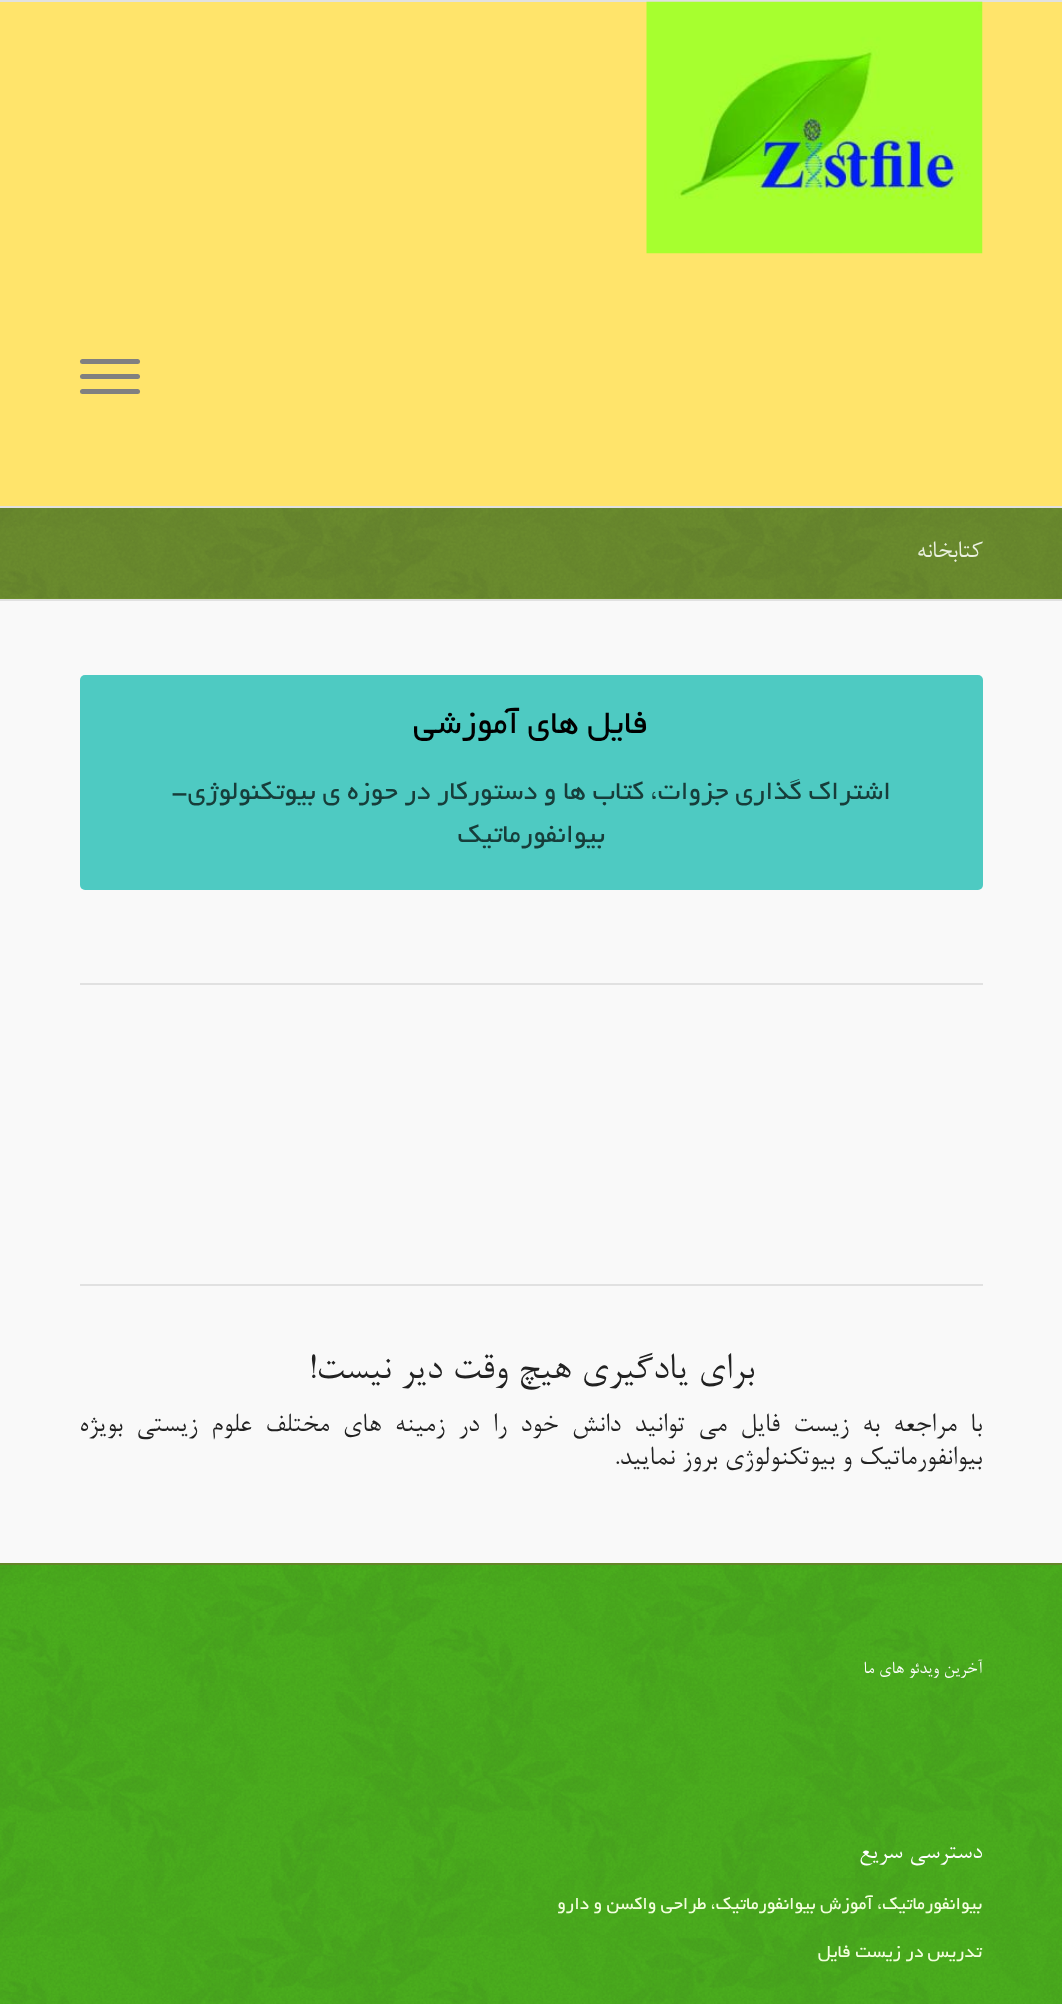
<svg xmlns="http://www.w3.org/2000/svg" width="1062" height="2004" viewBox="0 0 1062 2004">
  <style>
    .t1 { font: 27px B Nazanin; direction: rtl; fill: #ecf2e1; }
    .t2 { font: 36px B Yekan; direction: rtl; fill: #000; }
    .t3 { font: 28.8px B Yekan; direction: rtl; fill: #173d3a; }
    .t4 { font: 42px B Nazanin; direction: rtl; fill: #222; }
    .t5 { font: 30px B Nazanin; direction: rtl; fill: #222; }
    .t6 { font: 19.5px B Nazanin; direction: rtl; fill: #fff; }
    .t7 { font: 27px B Nazanin; direction: rtl; fill: #fff; }
    .t8 { font: 19.5px B Yekan; direction: rtl; fill: #f3ffde; }
  </style>
  <rect width="100%" height="100%" fill="#719430"/>
  <rect x="0" y="0" width="1062" height="2" fill="#e1e1e1"/>
  <rect x="0" y="506" width="1062" height="2" fill="#e1e1e1"/>
  <rect x="0" y="2" width="1062" height="504" fill="#ffe46b"/>
  <image x="646" y="1" width="337" height="253" href="images/1.png"/>
  <rect x="80" y="374" width="60" height="5" rx="2.5" fill="#808080"/>
  <rect x="80" y="359" width="60" height="5" rx="2.5" fill="#808080"/>
  <rect x="80" y="389" width="60" height="5" rx="2.5" fill="#808080"/>
  <image x="0" y="508" width="1062" height="91" href="images/2.png"/>
  <text x="982" y="557" class="t1">کتابخانه</text>
  <rect x="0" y="601" width="1062" height="962" fill="#f9f9f9"/>
  <rect x="0" y="599" width="1062" height="2" fill="#e1e1e1"/>
  <rect x="80" y="675" width="903" height="215" rx="5" fill="#4ecac2"/>
  <text x="648" y="733" class="t2">فایل های آموزشی</text>
  <text x="891" y="799" class="t3">اشتراک گذاری جزوات، کتاب ها و دستورکار در حوزه ی بیوتکنولوژی-</text>
  <text x="605" y="842" class="t3">بیوانفورماتیک</text>
  <rect x="80" y="983" width="903" height="2" fill="#e1e1e1"/>
  <rect x="80" y="1284" width="903" height="2" fill="#e1e1e1"/>
  <text x="754" y="1378" class="t4">برای یادگیری هیچ وقت دیر نیست!</text>
  <text x="982" y="1431" word-spacing="6.25" class="t5">با مراجعه به زیست فایل می توانید دانش خود را در زمینه های مختلف علوم زیستی بویژه</text>
  <text x="982" y="1464" class="t5">بیوانفورماتیک و بیوتکنولوژی بروز نمایید.</text>
  <rect x="0" y="1565" width="1062" height="439" fill="#4fb81f"/>
  <image x="0" y="1565" width="1062" height="439" href="images/3.png"/>
  <rect x="0" y="1563" width="1062" height="2" fill="#658529"/>
  <text x="982" y="1673" class="t6">آخرین ویدئو های</text>
  <text x="874" y="1673" class="t6">ما</text>
  <text x="982" y="1858" class="t7">دسترسی سریع</text>
  <text x="982" y="1909" class="t8">بیوانفورماتیک، آموزش بیوانفورماتیک، طراحی واکسن و دارو</text>
  <text x="982" y="1957" class="t8">تدریس در زیست فایل</text>
</svg>
